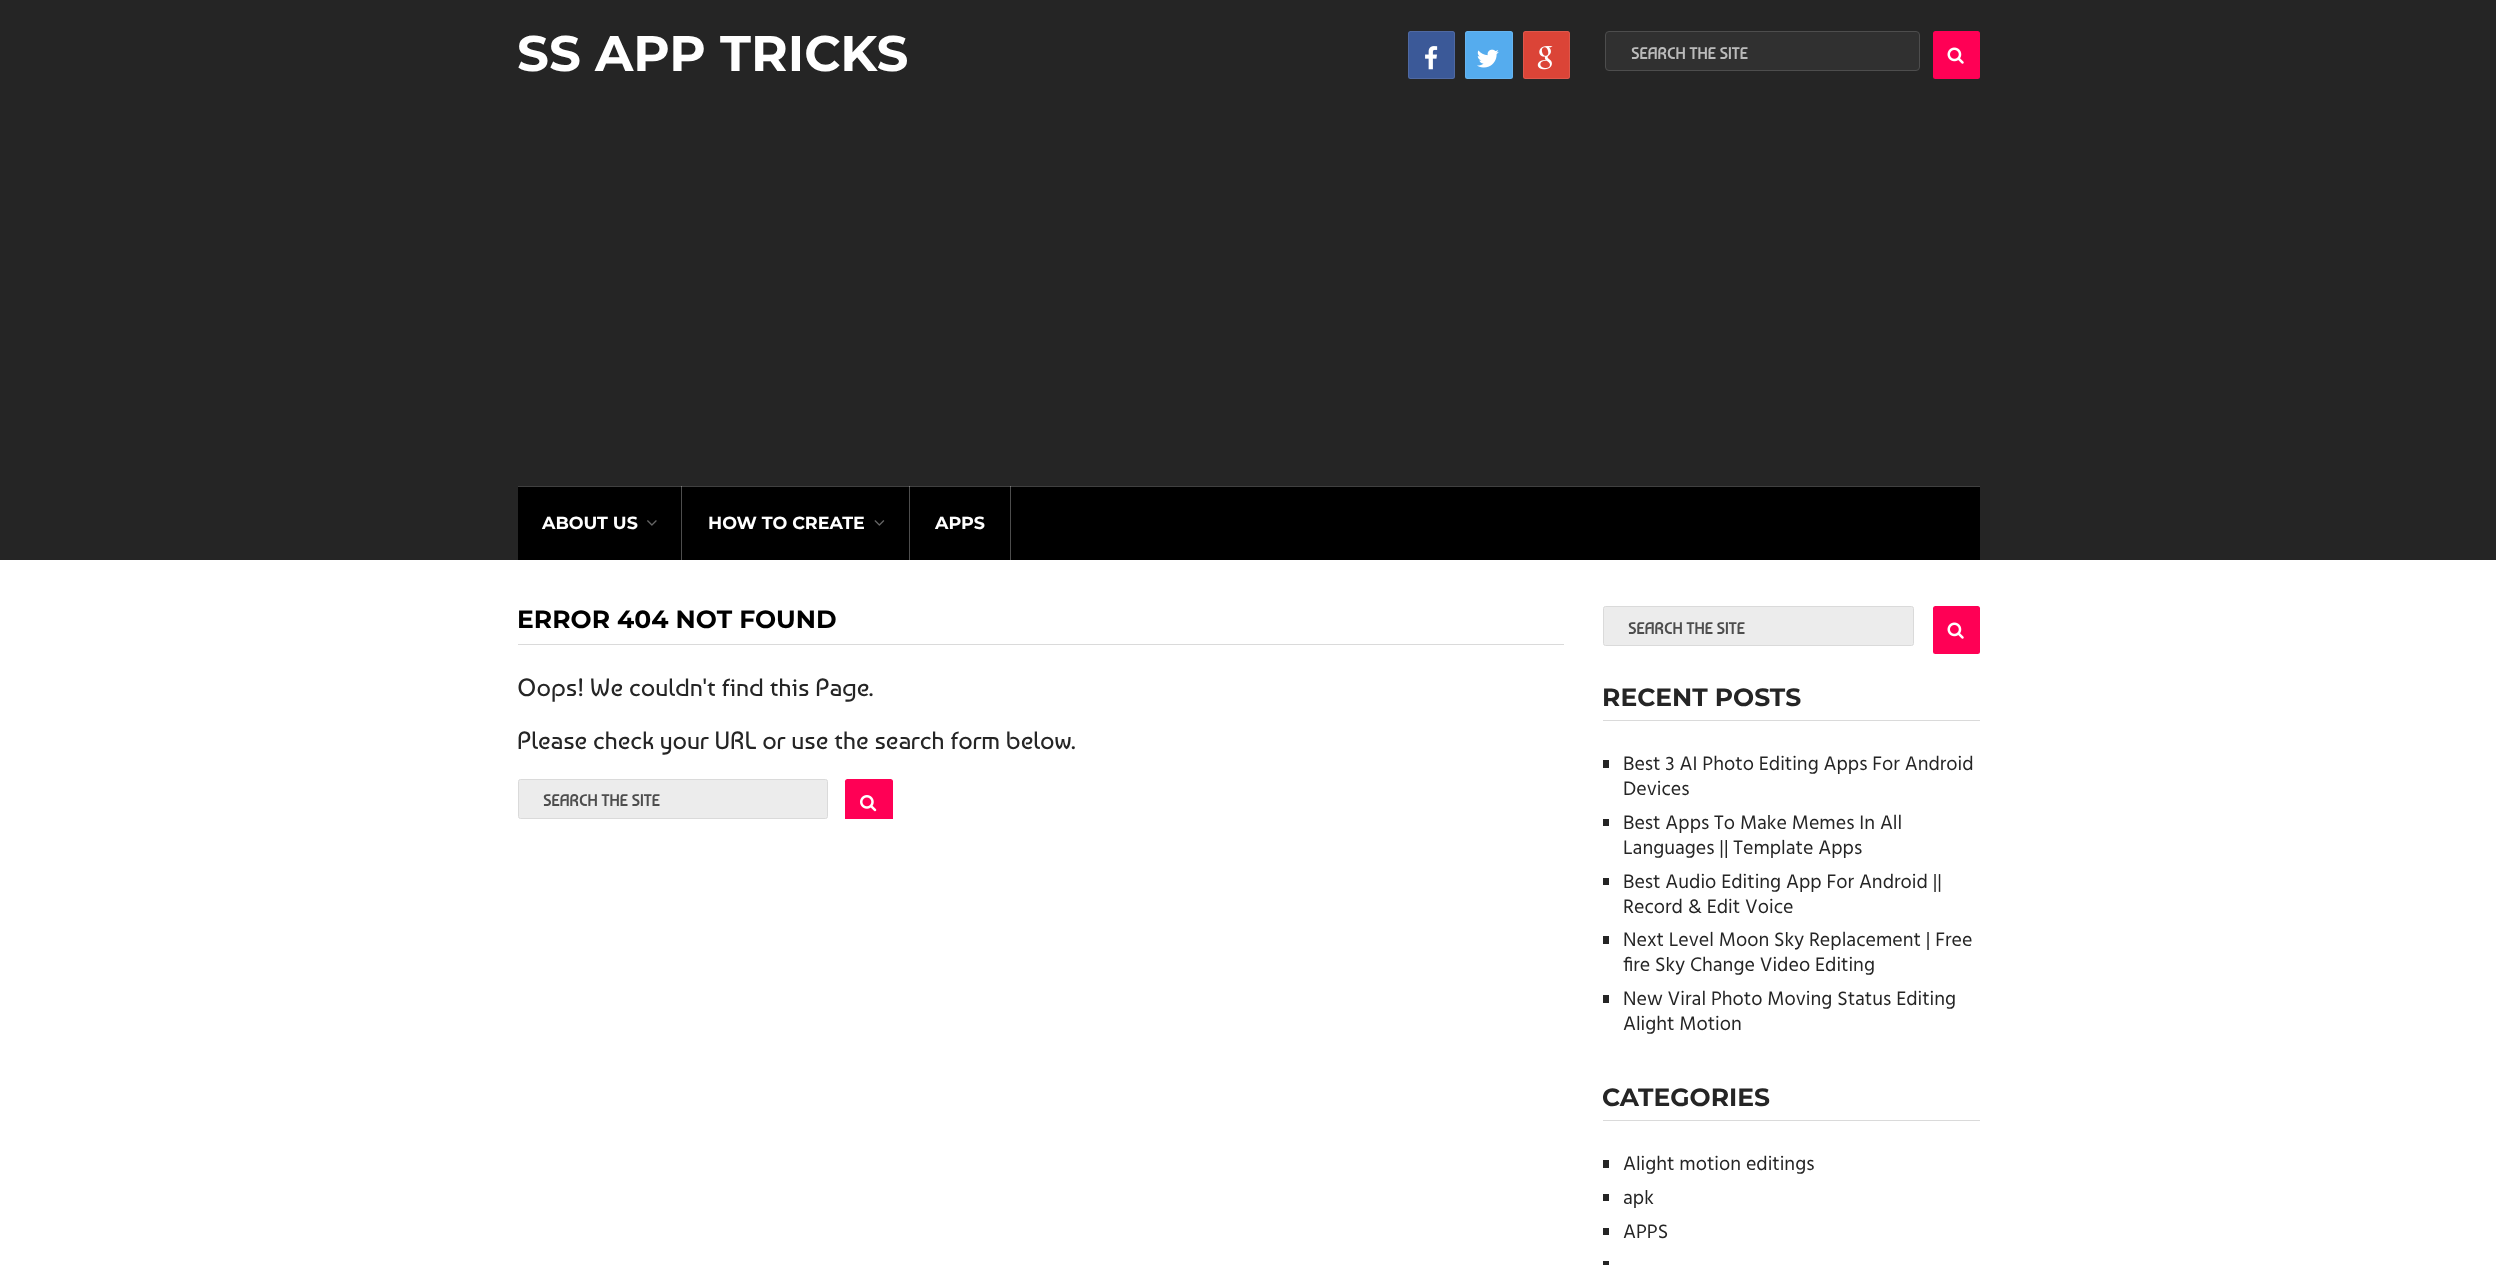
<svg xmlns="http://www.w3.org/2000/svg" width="2496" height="1265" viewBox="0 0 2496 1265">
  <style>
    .t1 { font: bold 50px Montserrat; fill: #fff; }
    .t2 { font: bold 16.25px Baumans; fill: #bbb; }
    .t3 { font: bold 17.5px Montserrat; fill: #fff; }
    .t4 { font: bold 25px Montserrat; fill: #000; }
    .t5 { font: 25px Baumans; fill: #252525; }
    .t6 { font: bold 16.25px Baumans; fill: #4d4d4d; }
    .t7 { font: bold 25px Montserrat; fill: #252525; }
    .t8 { font: 20px Hind; fill: #252525; }
  </style>
  <rect width="100%" height="100%" fill="#fff"/>
  <rect x="0" y="0" width="2496" height="560" fill="#252525"/>
  <text x="517" y="71" class="t1">SS APP TRICKS</text>
  <rect x="1408" y="31" width="47" height="48" rx="2.5" fill="#3b5998"/>
  <rect x="1408.5" y="31.5" width="46" height="47" rx="2" fill="none" stroke="#ffffff1a"/>
  <image x="1425" y="46" width="13" height="24" href="images/1.png"/>
  <rect x="1465" y="31" width="48" height="48" rx="2.5" fill="#55acee"/>
  <rect x="1465.5" y="31.5" width="47" height="47" rx="2" fill="none" stroke="#ffffff1a"/>
  <image x="1477" y="49" width="22" height="19" href="images/2.png"/>
  <rect x="1523" y="31" width="47" height="48" rx="2.5" fill="#db4437"/>
  <rect x="1523.5" y="31.5" width="46" height="47" rx="2" fill="none" stroke="#ffffff1a"/>
  <image x="1537" y="46" width="16" height="24" href="images/3.png"/>
  <rect x="1605.5" y="31.5" width="314" height="39" rx="3.5" fill="#303030" stroke="#4d4d4d"/>
  <text x="1631" y="59" class="t2">SEARCH THE SITE</text>
  <rect x="1933" y="31" width="47" height="48" rx="2.5" fill="#f05"/>
  <image x="1947" y="47" width="17" height="17" href="images/4.png"/>
  <rect x="518" y="487" width="1462" height="73" fill="#000"/>
  <rect x="1010" y="486" width="1" height="74" fill="#4d4d4d"/>
  <rect x="909" y="486" width="1" height="74" fill="#4d4d4d"/>
  <rect x="681" y="486" width="1" height="74" fill="#4d4d4d"/>
  <rect x="518" y="486" width="1462" height="1" fill="#404040"/>
  <rect x="1010" y="486" width="1" height="1" fill="#797979"/>
  <rect x="909" y="486" width="1" height="1" fill="#797979"/>
  <rect x="681" y="486" width="1" height="1" fill="#797979"/>
  <text x="542" y="529" class="t3">ABOUT US</text>
  <image x="647" y="520" width="10" height="6" href="images/5.png"/>
  <text x="708" y="529" class="t3">HOW TO CREATE</text>
  <image x="874" y="520" width="11" height="6" href="images/6.png"/>
  <text x="935" y="529" class="t3">APPS</text>
  <rect x="518" y="644" width="1046" height="1" fill="#dadada"/>
  <text x="517" y="628" class="t4">ERROR 404 NOT FOUND</text>
  <text x="517" y="696" class="t5">Oops! We couldn't find this Page.</text>
  <text x="517" y="749" class="t5">Please check your URL or use the search form below.</text>
  <rect x="518.5" y="779.5" width="309" height="39" rx="2" fill="#ececec" stroke="#dadada"/>
  <text x="543" y="806" class="t6">SEARCH THE SITE</text>
  <path d="M847.5 779H890.5C892 779 893 780 893 781.5V819H845V781.5C845 780 846 779 847.5 779Z" fill="#f05"/>
  <image x="860" y="795" width="17" height="17" href="images/7.png"/>
  <rect x="1603.5" y="606.5" width="310" height="39" rx="2" fill="#ececec" stroke="#dadada"/>
  <text x="1628" y="634" class="t6">SEARCH THE SITE</text>
  <rect x="1933" y="606" width="47" height="48" rx="2.5" fill="#f05"/>
  <image x="1947" y="622" width="17" height="17" href="images/4.png"/>
  <rect x="1603" y="720" width="377" height="1" fill="#dadada"/>
  <text x="1602" y="706" class="t7">RECENT POSTS</text>
  <rect x="1603" y="760" width="6" height="8" fill="#252525"/>
  <text x="1623" y="770" class="t8">Best 3 AI Photo Editing Apps For Android</text>
  <text x="1623" y="795" class="t8">Devices</text>
  <rect x="1603" y="819" width="6" height="7" fill="#252525"/>
  <text x="1623" y="829" class="t8">Best Apps To Make Memes In All</text>
  <text x="1623" y="854" class="t8">Languages || Template Apps</text>
  <rect x="1603" y="878" width="6" height="7" fill="#252525"/>
  <text x="1623" y="888" class="t8">Best Audio Editing App For Android ||</text>
  <text x="1623" y="913" class="t8">Record &amp; Edit Voice</text>
  <rect x="1603" y="936" width="6" height="8" fill="#252525"/>
  <text x="1623" y="946" class="t8">Next Level Moon Sky Replacement | Free</text>
  <text x="1623" y="971" class="t8">fire Sky Change Video Editing</text>
  <rect x="1603" y="995" width="6" height="8" fill="#252525"/>
  <text x="1623" y="1005" class="t8">New Viral Photo Moving Status Editing</text>
  <text x="1623" y="1030" class="t8">Alight Motion</text>
  <rect x="1603" y="1120" width="377" height="1" fill="#dadada"/>
  <text x="1602" y="1106" class="t7">CATEGORIES</text>
  <rect x="1603" y="1160" width="6" height="8" fill="#252525"/>
  <text x="1623" y="1170" class="t8">Alight motion editings</text>
  <rect x="1603" y="1194" width="6" height="7" fill="#252525"/>
  <text x="1623" y="1204" class="t8">apk</text>
  <rect x="1603" y="1228" width="6" height="7" fill="#252525"/>
  <text x="1623" y="1238" class="t8">APPS</text>
  <rect x="1603" y="1261" width="6" height="4" fill="#252525"/>
</svg>
